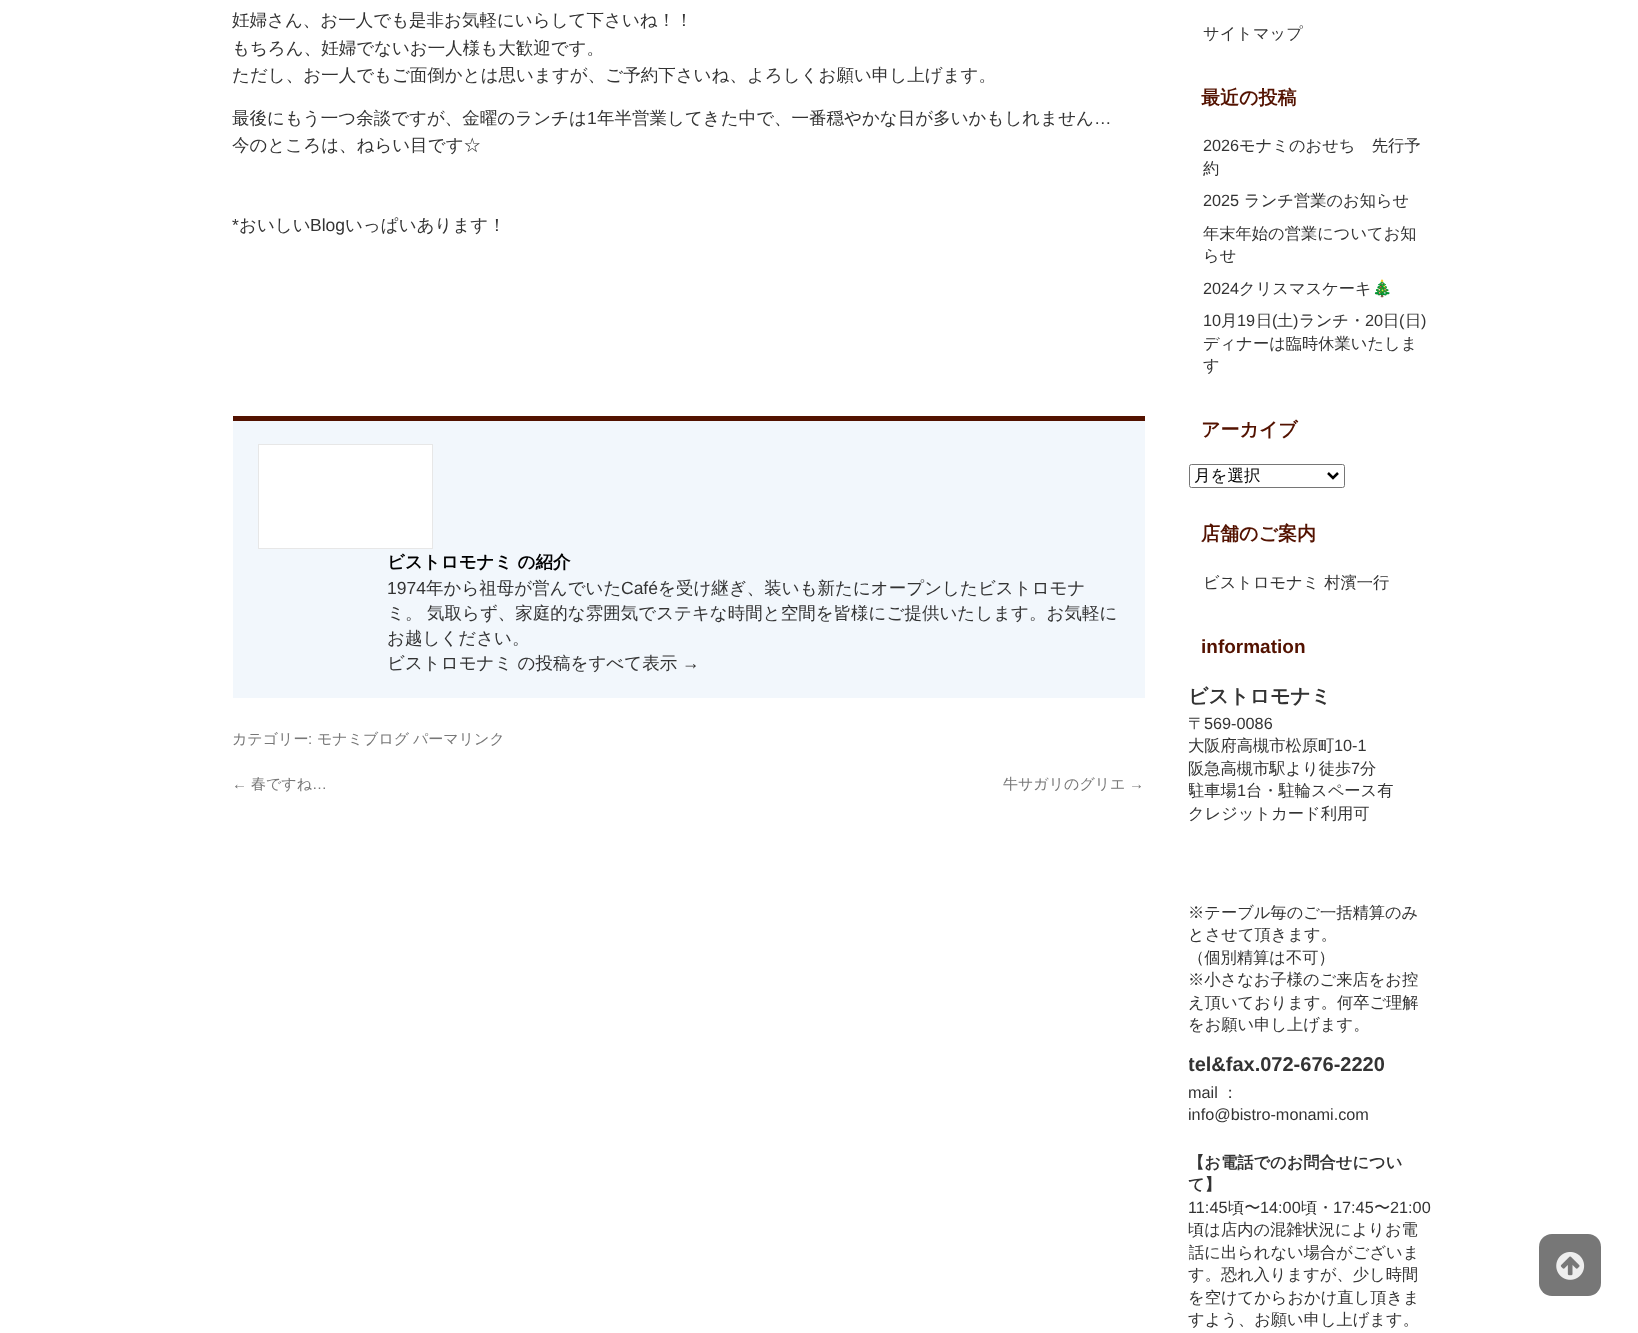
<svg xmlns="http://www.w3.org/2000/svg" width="1638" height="1333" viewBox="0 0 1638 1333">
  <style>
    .t1 { font: 500 17.5px WenQuanYi Zen Hei; fill: #333; }
    .t2 { font: 17.5px Liberation Sans; fill: #333; }
    .t3 { font: bold 17.5px WenQuanYi Zen Hei; fill: #000; }
    .t4 { font: 500 15px WenQuanYi Zen Hei; fill: #777; }
    .t5 { font: 15px Liberation Sans; fill: #777; }
    .t6 { font: 500 16.25px WenQuanYi Zen Hei; fill: #333; }
    .t7 { font: bold 19px WenQuanYi Zen Hei; fill: #531200; }
    .t8 { font: 16.25px Liberation Sans; fill: #333; }
    .t9 { font: 16.25px Noto Color Emoji; fill: #333; }
    .t10 { font: 500 16.5px WenQuanYi Zen Hei; fill: #000; }
    .t11 { font: bold 19px Liberation Sans; fill: #531200; }
    .t12 { font: bold 20px WenQuanYi Zen Hei; fill: #333; }
    .t13 { font: bold 20px Liberation Sans; fill: #333; }
    .t14 { font: bold 16.25px WenQuanYi Zen Hei; fill: #333; }
  </style>
  <defs>
    <clipPath id="clip1"><rect x="1189" y="0" width="244" height="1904"/></clipPath>
  </defs>
  <rect width="100%" height="100%" fill="#fff"/>
  <text x="232" y="26" class="t1">妊婦さん、お一人でも是非お気軽にいらして下さいね！！</text>
  <text x="232" y="54" class="t1">もちろん、妊婦でないお一人様も大歓迎です。</text>
  <text x="232" y="81" class="t1">ただし、お一人でもご面倒かとは思いますが、ご予約下さいね、よろしくお願い申し上げます。</text>
  <text x="232" y="124" class="t1">最後にもう一つ余談ですが、金曜のランチは</text>
  <text x="587" y="124" class="t2">1</text>
  <text x="597" y="124" class="t1">年半営業してきた中で、一番穏やかな日が多いかもしれません</text>
  <text x="1094" y="124" class="t2">…</text>
  <text x="232" y="151" class="t1">今のところは、ねらい目です☆</text>
  <text x="232" y="231" class="t2">*</text>
  <text x="239" y="231" class="t1">おいしい</text>
  <text x="310" y="231" class="t2">Blog</text>
  <text x="345" y="231" class="t1">いっぱいあります！</text>
  <rect x="233" y="421" width="912" height="277" fill="#f2f7fc"/>
  <rect x="233" y="416" width="912" height="5" fill="#531200"/>
  <rect x="258.5" y="444.5" width="174" height="104" fill="#fff" stroke="#e7e7e7"/>
  <text x="387" y="568" class="t3">ビストロモナミ の紹介</text>
  <text x="387" y="594" class="t2">1974</text>
  <text x="426" y="594" class="t1">年から祖母が営んでいた</text>
  <text x="621" y="594" class="t2">Café</text>
  <text x="658" y="594" class="t1">を受け継ぎ、装いも新たにオープンしたビストロモナ</text>
  <text x="387" y="619" class="t1">ミ。</text>
  <text x="427" y="619" class="t1">気取らず、家庭的な雰囲気でステキな時間と空間を皆様にご提供いたします。お気軽に</text>
  <text x="387" y="644" class="t1">お越しください。</text>
  <text x="387" y="669" class="t1">ビストロモナミ の投稿をすべて表示</text>
  <text x="682" y="669" class="t2">→</text>
  <text x="232" y="744" class="t4">カテゴリー</text>
  <text x="308" y="744" class="t5">:</text>
  <text x="317" y="744" class="t4">モナミブログ</text>
  <text x="413" y="744" class="t4">パーマリンク</text>
  <text x="232" y="789" class="t5">←</text>
  <text x="251" y="789" class="t4">春ですね</text>
  <text x="312" y="789" class="t5">…</text>
  <text x="1003" y="789" class="t4">牛サガリのグリエ</text>
  <text x="1129" y="789" class="t5">→</text>
  <text x="1203" y="39" class="t6">サイトマップ</text>
  <text x="1201" y="104" class="t7">最近の投稿</text>
  <text x="1203" y="151" class="t8">2026</text>
  <text x="1239" y="151" class="t6">モナミのおせち　先行予</text>
  <text x="1203" y="174" class="t6">約</text>
  <text x="1203" y="206" class="t8">2025</text>
  <text x="1244" y="206" class="t6">ランチ営業のお知らせ</text>
  <text x="1203" y="239" class="t6">年末年始の営業についてお知</text>
  <text x="1203" y="261" class="t6">らせ</text>
  <text x="1203" y="294" class="t8">2024</text>
  <text x="1239" y="294" class="t6">クリスマスケーキ</text>
  <text x="1372" y="294" class="t9">🎄</text>
  <text x="1203" y="326" class="t8">10</text>
  <text x="1221" y="326" class="t6">月</text>
  <text x="1237" y="326" class="t8">19</text>
  <text x="1256" y="326" class="t6">日</text>
  <text x="1272" y="326" class="t8">(</text>
  <text x="1277" y="326" class="t6">土</text>
  <text x="1293" y="326" class="t8">)</text>
  <text x="1299" y="326" class="t6">ランチ・</text>
  <text x="1365" y="326" class="t8">20</text>
  <text x="1383" y="326" class="t6">日</text>
  <text x="1399" y="326" class="t8">(</text>
  <text x="1405" y="326" class="t6">日</text>
  <text x="1421" y="326" class="t8">)</text>
  <text x="1203" y="349" class="t6">ディナーは臨時休業いたしま</text>
  <text x="1203" y="371" class="t6">す</text>
  <text x="1201" y="436" class="t7">アーカイブ</text>
  <rect x="1189.5" y="464.5" width="155" height="23" rx="2" fill="none" stroke="#767676"/>
  <path d="M1328 473L1333 478L1338 473" fill="none" stroke="#000" stroke-width="2.5"/>
  <text x="1194" y="481" class="t10">月を選択</text>
  <text x="1201" y="540" class="t7">店舗のご案内</text>
  <text x="1203" y="588" class="t6">ビストロモナミ 村濱一行</text>
  <text x="1201" y="653" class="t11">information</text>
  <text x="1188" y="703" class="t12">ビストロモナミ</text>
  <text x="1188" y="729" class="t6">〒</text>
  <text x="1204" y="729" class="t8">569-0086</text>
  <text x="1188" y="751" class="t6">大阪府高槻市松原町</text>
  <text x="1334" y="751" class="t8">10-1</text>
  <text x="1188" y="774" class="t6">阪急高槻市駅より徒歩</text>
  <text x="1351" y="774" class="t8">7</text>
  <text x="1360" y="774" class="t6">分</text>
  <g clip-path="url(#clip1)">
    <text x="1188" y="796" class="t6">駐車場</text>
  </g>
  <text x="1237" y="796" class="t8">1</text>
  <text x="1246" y="796" class="t6">台・駐輪スペース有</text>
  <text x="1188" y="819" class="t6">クレジットカード利用可</text>
  <text x="1188" y="918" class="t6">※テーブル毎のご一括精算のみ</text>
  <text x="1188" y="940" class="t6">とさせて頂きます。</text>
  <text x="1188" y="963" class="t6">（個別精算は不可）</text>
  <text x="1188" y="985" class="t6">※小さなお子様のご来店をお控</text>
  <text x="1188" y="1008" class="t6">え頂いております。何卒ご理解</text>
  <text x="1188" y="1030" class="t6">をお願い申し上げます。</text>
  <g clip-path="url(#clip1)">
    <text x="1188" y="1071" class="t13">tel&amp;fax.072-676-2220</text>
  </g>
  <text x="1188" y="1098" class="t8">mail</text>
  <text x="1222" y="1098" class="t6">：</text>
  <text x="1188" y="1120" class="t8">info@bistro-monami.com</text>
  <text x="1188" y="1168" class="t14">【お電話でのお問合せについ</text>
  <text x="1188" y="1190" class="t14">て】</text>
  <text x="1188" y="1213" class="t8">11:45</text>
  <text x="1228" y="1213" class="t6">頃〜</text>
  <text x="1260" y="1213" class="t8">14:00</text>
  <text x="1301" y="1213" class="t6">頃・</text>
  <text x="1333" y="1213" class="t8">17:45</text>
  <text x="1374" y="1213" class="t6">〜</text>
  <text x="1390" y="1213" class="t8">21:00</text>
  <text x="1188" y="1235" class="t6">頃は店内の混雑状況によりお電</text>
  <g clip-path="url(#clip1)">
    <text x="1188" y="1258" class="t6">話に出られない場合がございま</text>
  </g>
  <text x="1188" y="1280" class="t6">す。恐れ入りますが、少し時間</text>
  <text x="1188" y="1303" class="t6">を空けてからおかけ直し頂きま</text>
  <text x="1188" y="1325" class="t6">すよう、お願い申し上げます。</text>
  <rect x="1539" y="1234" width="62" height="62" rx="13" fill="#777"/>
  <image x="1556" y="1252" width="29" height="28" href="images/1.png"/>
</svg>
